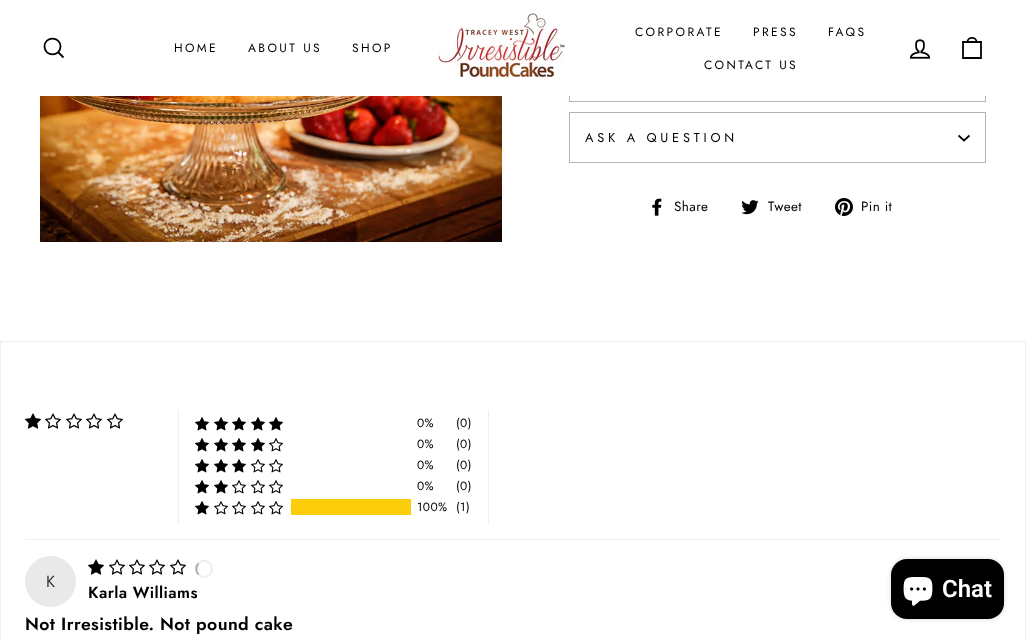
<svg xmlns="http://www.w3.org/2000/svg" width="1026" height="640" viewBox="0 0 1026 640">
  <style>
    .t1 { font: 12px Jost; letter-spacing: 2.4px; fill: #000; }
    .t2 { font: 12.75px Jost; letter-spacing: 3.8px; fill: #000; }
    .t3 { font: 13.5px Jost; letter-spacing: 0.4px; fill: #000; }
    .t4 { font: 12px Jost; letter-spacing: 0.4px; fill: #000; }
    .t5 { font: 16px Jost; letter-spacing: 0.4px; fill: #333; }
    .t6 { font: 600 16px Jost; letter-spacing: 0.4px; fill: #000; }
    .t7 { font: 600 17.6px Jost; letter-spacing: 0.4px; fill: #000; }
    .t8 { font: 600 24px Roboto; fill: #fff; }
  </style>
  <rect width="100%" height="100%" fill="#fff"/>
  <image x="40" y="96" width="462" height="146" href="images/3.png"/>
  <rect x="569.5" y="51.5" width="416" height="50" fill="none" stroke="#b3b3b3"/>
  <rect x="0" y="0" width="1026" height="96" fill="#00000033" filter="blur(0.5px)"/>
  <rect x="0" y="0" width="1026" height="96" fill="#fff"/>
  <path d="M60.5 46.5C60.5 57 44.5 57 44.5 46.5C44.5 36 60.5 36 60.5 46.5ZM63.5 57.5L58.5 52.5" fill="none" stroke="#000" stroke-width="1.8"/>
  <text x="174" y="52" class="t1">HOME</text>
  <text x="248" y="52" class="t1">ABOUT US</text>
  <text x="352" y="52" class="t1">SHOP</text>
  <image x="438" y="13" width="127" height="66" href="images/1.png"/>
  <text x="635" y="36" class="t1">CORPORATE</text>
  <text x="753" y="36" class="t1">PRESS</text>
  <text x="828" y="36" class="t1">FAQS</text>
  <text x="704" y="69" class="t1">CONTACT US</text>
  <image x="909" y="39" width="22" height="20" href="images/2.png"/>
  <path d="M963 42H981V58H963ZM967.5 42C967.5 36.5 976.5 36.5 976.5 42" fill="none" stroke="#000" stroke-width="1.8"/>
  <rect x="569.5" y="112.5" width="416" height="50" fill="none" stroke="#b3b3b3"/>
  <text x="585" y="142" class="t2">ASK A QUESTION</text>
  <path d="M958.5 135.5L964 140.5L969.5 135.5" fill="none" stroke="#000" stroke-width="1.7"/>
  <image x="652" y="198" width="10" height="18" href="images/4.png"/>
  <text x="674" y="211" class="t3">Share</text>
  <image x="741" y="200" width="18" height="15" href="images/5.png"/>
  <text x="768" y="211" class="t3">Tweet</text>
  <image x="835" y="198" width="18" height="18" href="images/6.png"/>
  <text x="861" y="211" class="t3">Pin it</text>
  <rect x="0.5" y="341.5" width="1025" height="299" fill="none" stroke="#eee"/>
  <image x="25" y="413" width="16" height="16" href="images/7.png"/>
  <image x="45" y="413" width="16" height="16" href="images/8.png"/>
  <image x="66" y="413" width="16" height="16" href="images/8.png"/>
  <image x="86" y="413" width="16" height="16" href="images/8.png"/>
  <image x="107" y="413" width="16" height="16" href="images/8.png"/>
  <rect x="488" y="410" width="1" height="113" fill="#eee"/>
  <rect x="178" y="410" width="1" height="113" fill="#eee"/>
  <image x="195" y="417" width="14" height="14" href="images/9.png"/>
  <image x="214" y="417" width="14" height="14" href="images/9.png"/>
  <image x="232" y="417" width="14" height="14" href="images/9.png"/>
  <image x="251" y="417" width="14" height="14" href="images/9.png"/>
  <image x="269" y="417" width="14" height="14" href="images/9.png"/>
  <text x="417" y="427" class="t4">0%</text>
  <text x="456" y="427" class="t4">(0)</text>
  <image x="195" y="438" width="14" height="14" href="images/9.png"/>
  <image x="214" y="438" width="14" height="14" href="images/9.png"/>
  <image x="232" y="438" width="14" height="14" href="images/9.png"/>
  <image x="251" y="438" width="14" height="14" href="images/9.png"/>
  <image x="269" y="438" width="14" height="14" href="images/10.png"/>
  <text x="417" y="448" class="t4">0%</text>
  <text x="456" y="448" class="t4">(0)</text>
  <image x="195" y="459" width="14" height="14" href="images/9.png"/>
  <image x="214" y="459" width="14" height="14" href="images/9.png"/>
  <image x="232" y="459" width="14" height="14" href="images/9.png"/>
  <image x="251" y="459" width="14" height="14" href="images/10.png"/>
  <image x="269" y="459" width="14" height="14" href="images/10.png"/>
  <text x="417" y="469" class="t4">0%</text>
  <text x="456" y="469" class="t4">(0)</text>
  <image x="195" y="480" width="14" height="14" href="images/9.png"/>
  <image x="214" y="480" width="14" height="14" href="images/9.png"/>
  <image x="232" y="480" width="14" height="14" href="images/10.png"/>
  <image x="251" y="480" width="14" height="14" href="images/10.png"/>
  <image x="269" y="480" width="14" height="14" href="images/10.png"/>
  <text x="417" y="490" class="t4">0%</text>
  <text x="456" y="490" class="t4">(0)</text>
  <image x="195" y="501" width="14" height="14" href="images/9.png"/>
  <image x="214" y="501" width="14" height="14" href="images/10.png"/>
  <image x="232" y="501" width="14" height="14" href="images/10.png"/>
  <image x="251" y="501" width="14" height="14" href="images/10.png"/>
  <image x="269" y="501" width="14" height="14" href="images/10.png"/>
  <rect x="291" y="499" width="120" height="16" fill="#fbcd0a"/>
  <text x="417" y="511" class="t4">100%</text>
  <text x="456" y="511" class="t4">(1)</text>
  <rect x="25" y="539" width="976" height="1" fill="#eee"/>
  <image x="88" y="559" width="16" height="16" href="images/7.png"/>
  <image x="109" y="559" width="16" height="16" href="images/8.png"/>
  <image x="129" y="559" width="16" height="16" href="images/8.png"/>
  <image x="149" y="559" width="16" height="16" href="images/8.png"/>
  <image x="170" y="559" width="16" height="16" href="images/8.png"/>
  <path d="M198.5 563.5C200 561.5 203 560.5 205.5 561C215 563 213.5 577 204 577C202 577 200 576 198.5 574.5" fill="none" stroke="#eee" stroke-width="2"/>
  <path d="M198.5 574.5C195.5 571.5 195.5 566.5 198.5 563.5" fill="none" stroke="#aaa" stroke-width="2"/>
  <circle cx="50.5" cy="581.5" r="25.5" fill="#e9e9e9"/>
  <text x="46" y="587" class="t5">K</text>
  <text x="88" y="598" class="t6">Karla Williams</text>
  <text x="25" y="630" class="t7">Not Irresistible. Not pound cake</text>
  <rect x="891" y="559" width="113" height="60" rx="16" fill="#00000026" filter="blur(2.5px)"/>
  <rect x="891" y="559" width="113" height="60" rx="16" fill="#000"/>
  <image x="903" y="577" width="30" height="29" href="images/11.png"/>
  <text x="942" y="597" class="t8">Chat</text>
</svg>
